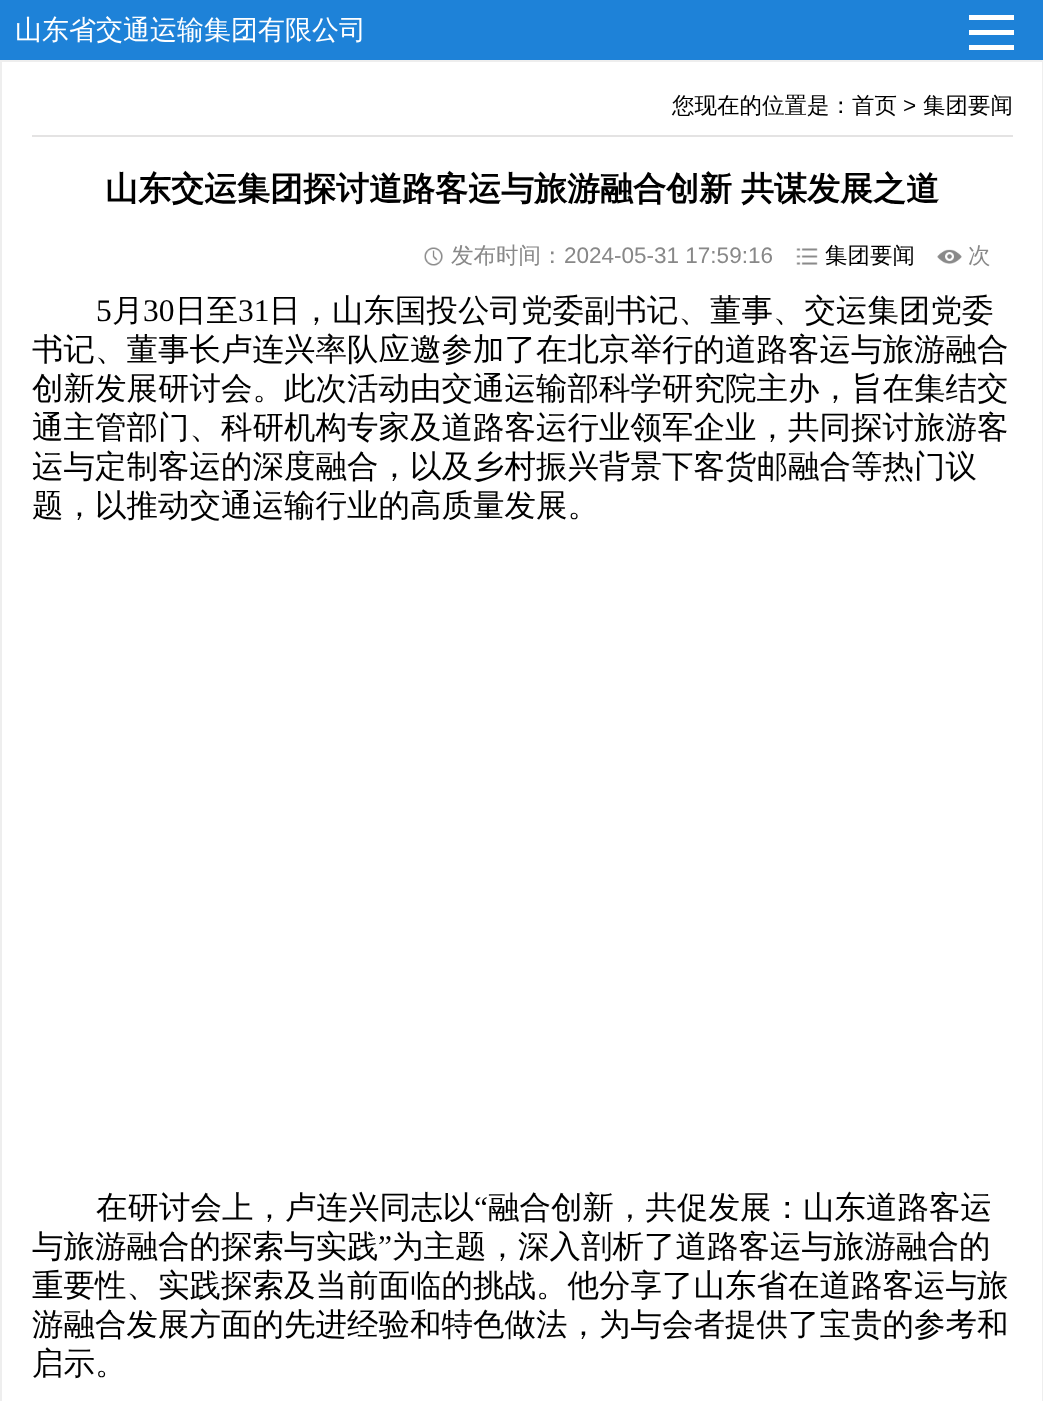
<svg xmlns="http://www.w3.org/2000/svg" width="1043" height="1401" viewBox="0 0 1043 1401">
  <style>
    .t1 { font: 500 27px WenQuanYi Zen Hei; fill: #fff; }
    .t2 { font: 500 22.5px WenQuanYi Zen Hei; fill: #000; }
    .t3 { font: 22.5px Liberation Sans; fill: #000; }
    .t4 { font: bold 33px WenQuanYi Zen Hei; fill: #000; }
    .t5 { font: 500 22.5px WenQuanYi Zen Hei; fill: #888; }
    .t6 { font: 22.5px Liberation Sans; fill: #888; }
    .t7 { font: 31.5px Liberation Serif; fill: #000; }
    .t8 { font: 500 31.5px WenQuanYi Zen Hei; fill: #000; }
  </style>
  <rect width="100%" height="100%" fill="#fff"/>
  <rect x="0" y="0" width="1043" height="60" fill="#1e82d8"/>
  <text x="15" y="39" class="t1">山东省交通运输集团有限公司</text>
  <rect x="969" y="30" width="45" height="5" fill="#fff"/>
  <rect x="969" y="15" width="45" height="5" fill="#fffefe"/>
  <rect x="969" y="45" width="45" height="5" fill="#fffefe"/>
  <rect x="1" y="61" width="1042" height="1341" fill="none" stroke="#eee" stroke-width="2"/>
  <rect x="32" y="135" width="981" height="2" fill="#e4e3e3"/>
  <text x="672" y="113" class="t2">您现在的位置是：首页</text>
  <text x="903" y="113" class="t3">&gt;</text>
  <text x="923" y="113" class="t2">集团要闻</text>
  <text x="105" y="200" word-spacing="-1" class="t4">山东交运集团探讨道路客运与旅游融合创新 共谋发展之道</text>
  <image x="424" y="247" width="19" height="19" href="images/1.png"/>
  <text x="451" y="263" class="t5">发布时间：</text>
  <text x="564" y="263" class="t6">2024-05-31 17:59:16</text>
  <image x="796" y="248" width="22" height="17" href="images/2.png"/>
  <text x="825" y="263" class="t2">集团要闻</text>
  <image x="937" y="249" width="25" height="15" href="images/3.png"/>
  <text x="968" y="263" class="t5">次</text>
  <text x="96" y="321" class="t7">5</text>
  <text x="112" y="321" class="t8">月</text>
  <text x="143" y="321" class="t7">30</text>
  <text x="175" y="321" class="t8">日至</text>
  <text x="238" y="321" class="t7">31</text>
  <text x="269" y="321" class="t8">日，山东国投公司党委副书记、董事、交运集团党委</text>
  <text x="32" y="360" class="t8">书记、董事长卢连兴率队应邀参加了在北京举行的道路客运与旅游融合</text>
  <text x="32" y="399" class="t8">创新发展研讨会。此次活动由交通运输部科学研究院主办，旨在集结交</text>
  <text x="32" y="438" class="t8">通主管部门、科研机构专家及道路客运行业领军企业，共同探讨旅游客</text>
  <text x="32" y="477" class="t8">运与定制客运的深度融合，以及乡村振兴背景下客货邮融合等热门议</text>
  <text x="32" y="516" class="t8">题，以推动交通运输行业的高质量发展。</text>
  <text x="96" y="1218" class="t8">在研讨会上，卢连兴同志以</text>
  <text x="474" y="1218" class="t7">“</text>
  <text x="488" y="1218" class="t8">融合创新，共促发展：山东道路客运</text>
  <text x="32" y="1257" class="t8">与旅游融合的探索与实践</text>
  <text x="378" y="1257" class="t7">”</text>
  <text x="392" y="1257" class="t8">为主题，深入剖析了道路客运与旅游融合的</text>
  <text x="32" y="1296" class="t8">重要性、实践探索及当前面临的挑战。他分享了山东省在道路客运与旅</text>
  <text x="32" y="1335" class="t8">游融合发展方面的先进经验和特色做法，为与会者提供了宝贵的参考和</text>
  <text x="32" y="1374" class="t8">启示。</text>
</svg>
